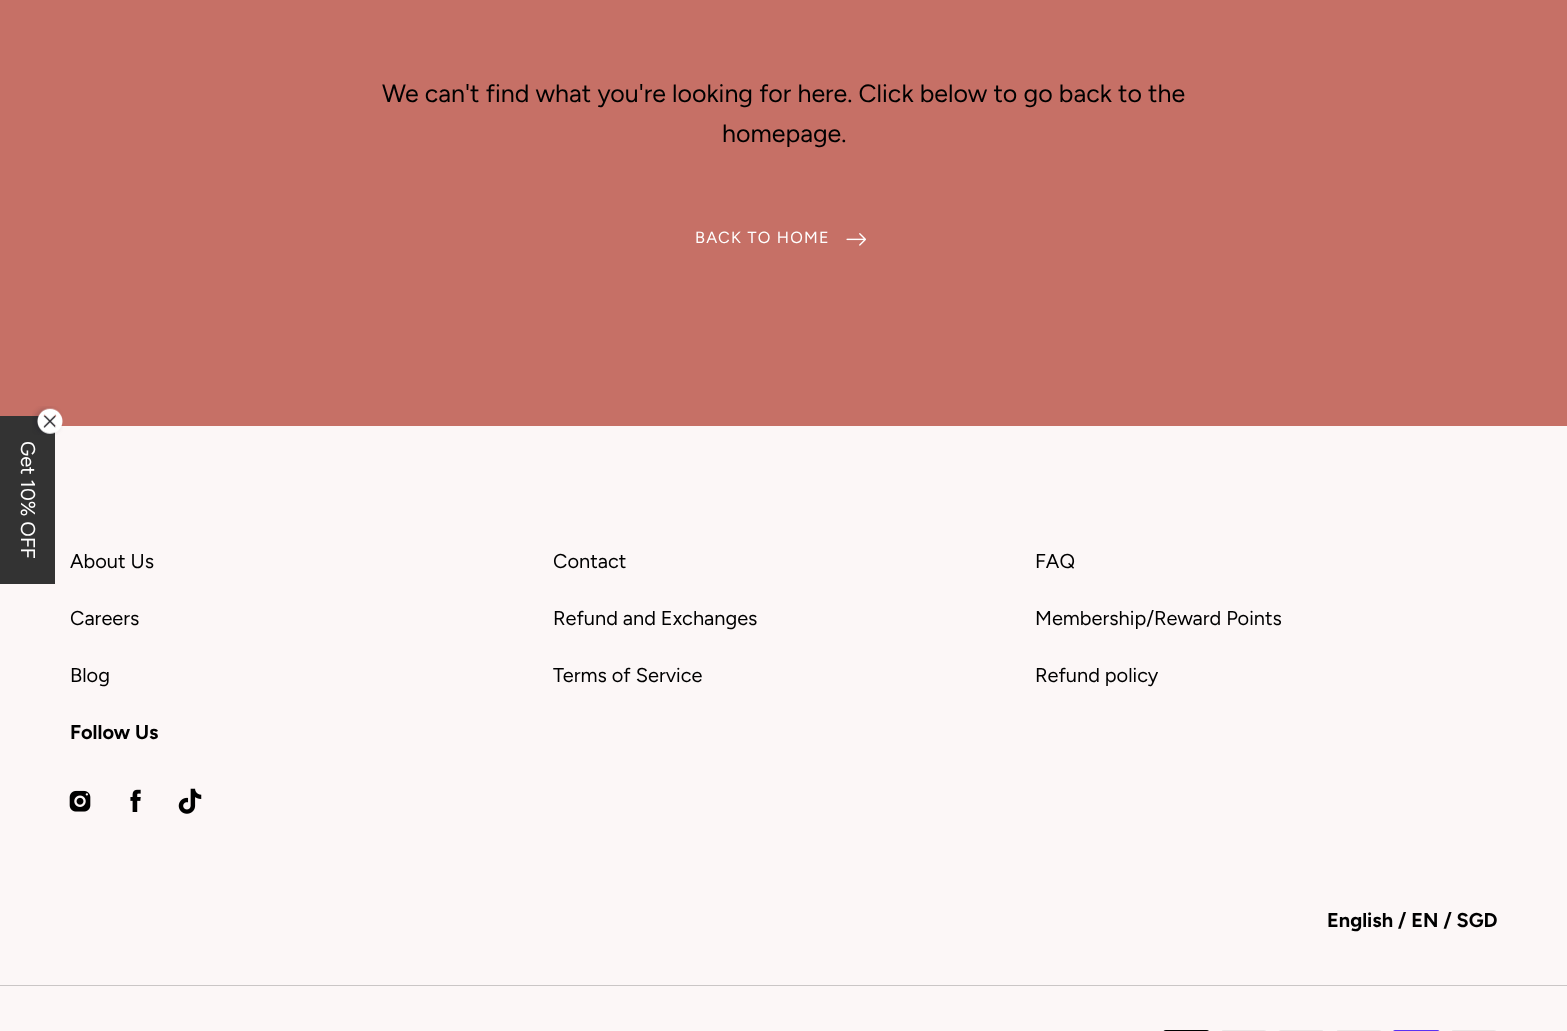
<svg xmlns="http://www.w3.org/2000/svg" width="1567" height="1031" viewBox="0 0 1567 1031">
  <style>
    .t1 { font: 25px Figtree; fill: #000; }
    .t2 { font: 16.25px Figtree; letter-spacing: 1.25px; fill: #fff; }
    .t3 { font: 20px Figtree; fill: #fff; }
    .t4 { font: 20px Figtree; fill: #000; }
    .t5 { font: bold 20px Figtree; fill: #000; }
  </style>
  <rect width="100%" height="100%" fill="#c67066"/>
  <text x="382" y="102" class="t1">We can't find what you're looking for here. Click below to go back to the</text>
  <text x="722" y="142" class="t1">homepage.</text>
  <text x="695" y="243" class="t2">BACK TO HOME</text>
  <image x="846" y="233" width="20" height="13" href="images/1.png"/>
  <rect x="0" y="426" width="1567" height="605" fill="#fcf7f7"/>
  <rect x="0" y="416" width="55" height="168" fill="#333"/>
  <image x="32" y="406" width="31" height="29" href="images/2.png"/>
  <text x="21" y="441" transform="rotate(90 21 441)" class="t3">Get 10% OFF</text>
  <text x="70" y="568" class="t4">About Us</text>
  <text x="553" y="568" class="t4">Contact</text>
  <text x="1035" y="568" class="t4">FAQ</text>
  <text x="70" y="625" class="t4">Careers</text>
  <text x="553" y="625" class="t4">Refund and Exchanges</text>
  <text x="1035" y="625" class="t4">Membership/Reward Points</text>
  <text x="70" y="682" class="t4">Blog</text>
  <text x="553" y="682" class="t4">Terms of Service</text>
  <text x="1035" y="682" class="t4">Refund policy</text>
  <text x="70" y="739" class="t5">Follow Us</text>
  <image x="69" y="790" width="22" height="22" href="images/3.png"/>
  <image x="130" y="789" width="11" height="23" href="images/4.png"/>
  <image x="178" y="788" width="24" height="26" href="images/5.png"/>
  <text x="1327" y="927" class="t5">English / EN / SGD</text>
  <rect x="0" y="985" width="1567" height="1" fill="#cac6c6"/>
  <image x="1163" y="1030" width="46" height="1" href="images/6.png"/>
  <image x="1222" y="1030" width="44" height="1" href="images/7.png"/>
  <image x="1279" y="1030" width="44" height="1" href="images/8.png"/>
  <image x="1337" y="1030" width="44" height="1" href="images/7.png"/>
  <image x="1393" y="1030" width="47" height="1" href="images/9.png"/>
  <image x="1452" y="1030" width="44" height="1" href="images/7.png"/>
</svg>
